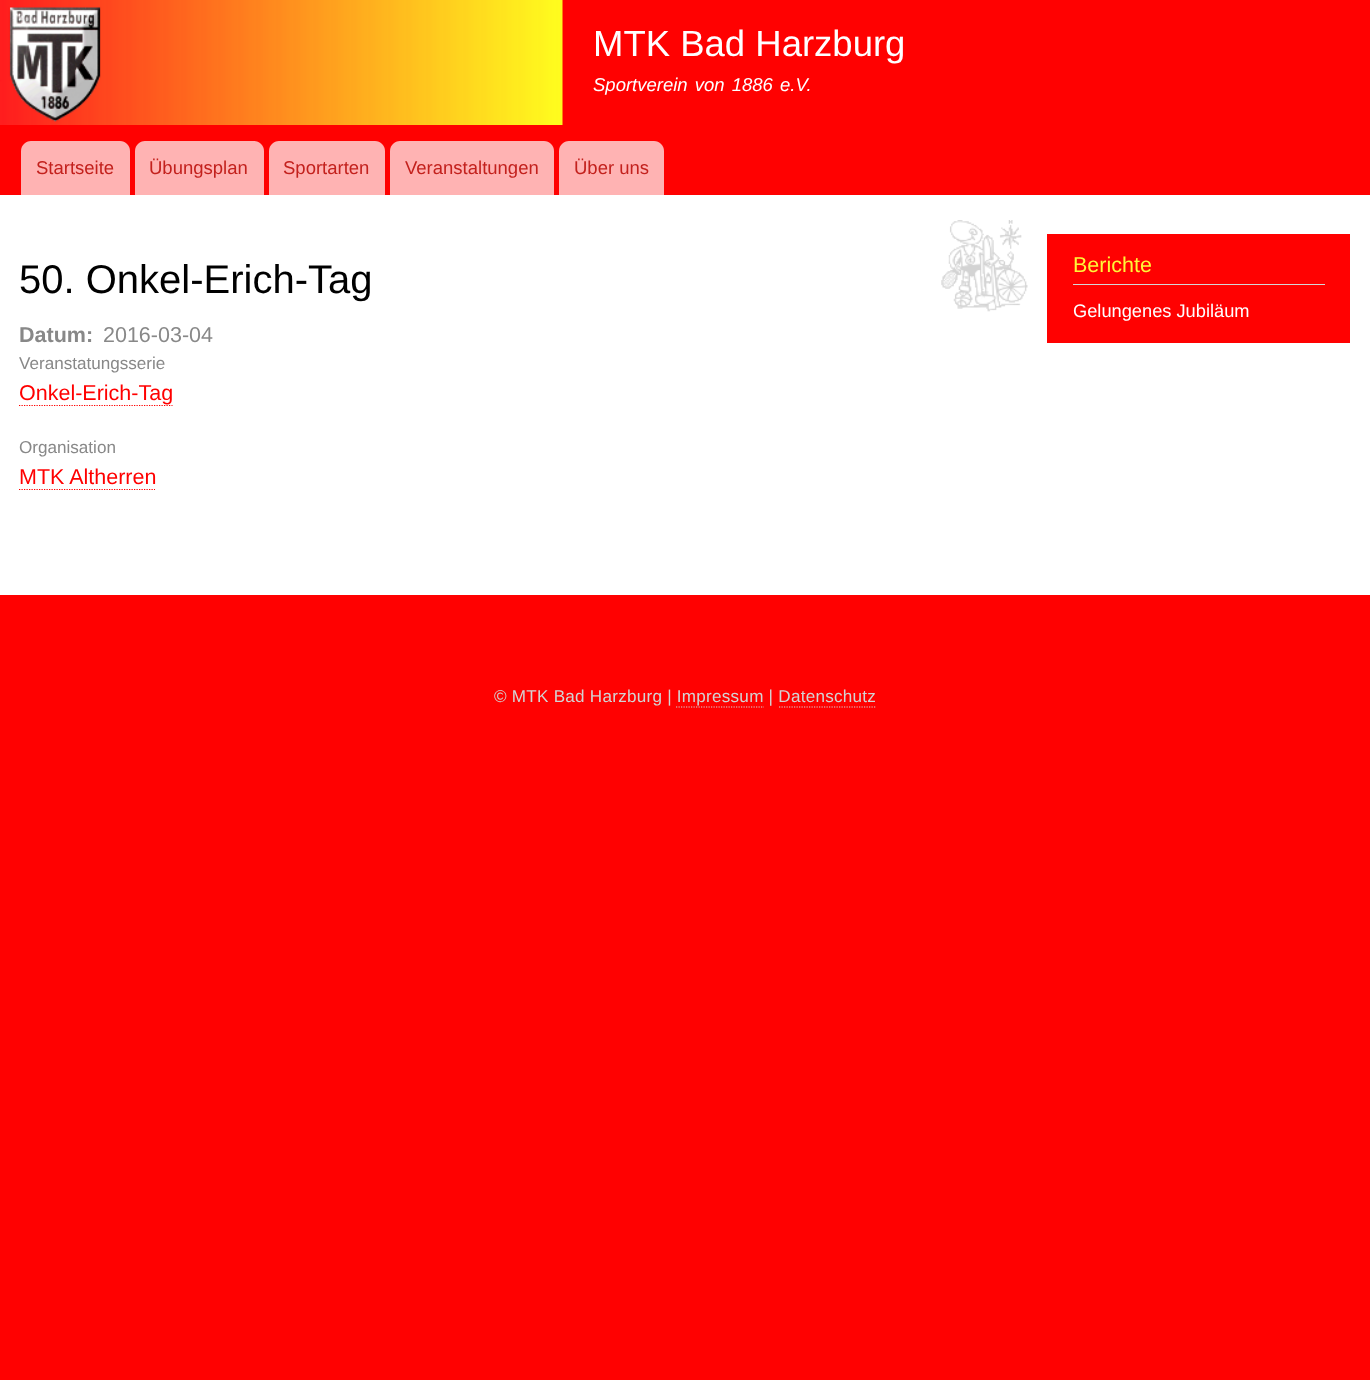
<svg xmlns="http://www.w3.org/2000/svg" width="1370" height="1380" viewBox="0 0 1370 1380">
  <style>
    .t1 { font: 36.5px Liberation Sans; fill: #fffeff; }
    .t2 { font: italic 18.5px Liberation Sans; fill: #fffeff; }
    .t3 { font: 18.5px Liberation Sans; fill: #c3211d; }
    .t4 { font: 40px Liberation Sans; fill: #000; }
    .t5 { font: bold 21.5px Liberation Sans; fill: #888; }
    .t6 { font: 21.5px Liberation Sans; fill: #888; }
    .t7 { font: 17.1px Liberation Sans; fill: #888; }
    .t8 { font: 21.5px Liberation Sans; fill: #f00; }
    .t9 { font: 21.5px Liberation Sans; fill: #fff638; }
    .t10 { font: 18.25px Liberation Sans; fill: #fffeff; }
    .t11 { font: 17.1px Liberation Sans; letter-spacing: 0.25px; fill: #d3d3d3; }
  </style>
  <rect width="100%" height="100%" fill="#ff0101"/>
  <rect x="0" y="195" width="1370" height="400" fill="#fff"/>
  <image x="0" y="0" width="563" height="125" href="images/1.png"/>
  <text x="593" y="56" class="t1">MTK Bad Harzburg</text>
  <text x="593" y="91" word-spacing="2" class="t2">Sportverein von 1886 e.V.</text>
  <path d="M31 141H120C125.5 141 130 145.5 130 151V195H21V151C21 145.5 25.5 141 31 141Z" fill="#ffb3b3"/>
  <text x="36" y="174" class="t3">Startseite</text>
  <path d="M145 141H254C259.5 141 264 145.5 264 151V195H135V151C135 145.5 139.5 141 145 141Z" fill="#ffb3b3"/>
  <text x="149" y="174" class="t3">Übungsplan</text>
  <path d="M279 141H375C380.5 141 385 145.5 385 151V195H269V151C269 145.5 273.5 141 279 141Z" fill="#ffb3b3"/>
  <text x="283" y="174" class="t3">Sportarten</text>
  <path d="M400 141H544C549.5 141 554 145.5 554 151V195H390V151C390 145.5 394.5 141 400 141Z" fill="#ffb3b3"/>
  <text x="405" y="174" class="t3">Veranstaltungen</text>
  <path d="M569 141H654C659.5 141 664 145.5 664 151V195H559V151C559 145.5 563.5 141 569 141Z" fill="#ffb3b3"/>
  <text x="574" y="174" class="t3">Über uns</text>
  <image x="941" y="220" width="87" height="92" href="images/2.png"/>
  <text x="19" y="293" class="t4">50. Onkel-Erich-Tag</text>
  <text x="19" y="342" class="t5">Datum:</text>
  <text x="103" y="342" class="t6">2016-03-04</text>
  <text x="19" y="369" class="t7">Veranstatungsserie</text>
  <path d="M19 405.5H172.5" fill="none" stroke="#f00" stroke-width="1.2" stroke-dasharray="1.25 1.25"/>
  <text x="19" y="400" class="t8">Onkel-Erich-Tag</text>
  <text x="19" y="453" class="t7">Organisation</text>
  <text x="19" y="484" class="t8">MTK Altherren</text>
  <path d="M19 489.5H155" fill="none" stroke="#f00" stroke-width="1.2" stroke-dasharray="1.25 1.25"/>
  <rect x="1047" y="234" width="303" height="109" fill="#ff0101"/>
  <rect x="1073" y="284" width="252" height="1" fill="#d6d6d6"/>
  <text x="1073" y="272" class="t9">Berichte</text>
  <text x="1073" y="317" class="t10">Gelungenes Jubiläum</text>
  <text x="494" y="702" class="t11">© MTK Bad Harzburg | Impressum | Datenschutz</text>
  <path d="M676 707H764" fill="none" stroke="#d3d3d3" stroke-width="1.2" stroke-dasharray="1.25 1.25"/>
  <path d="M779 707H876" fill="none" stroke="#d3d3d3" stroke-width="1.2" stroke-dasharray="1.25 1.25"/>
</svg>
